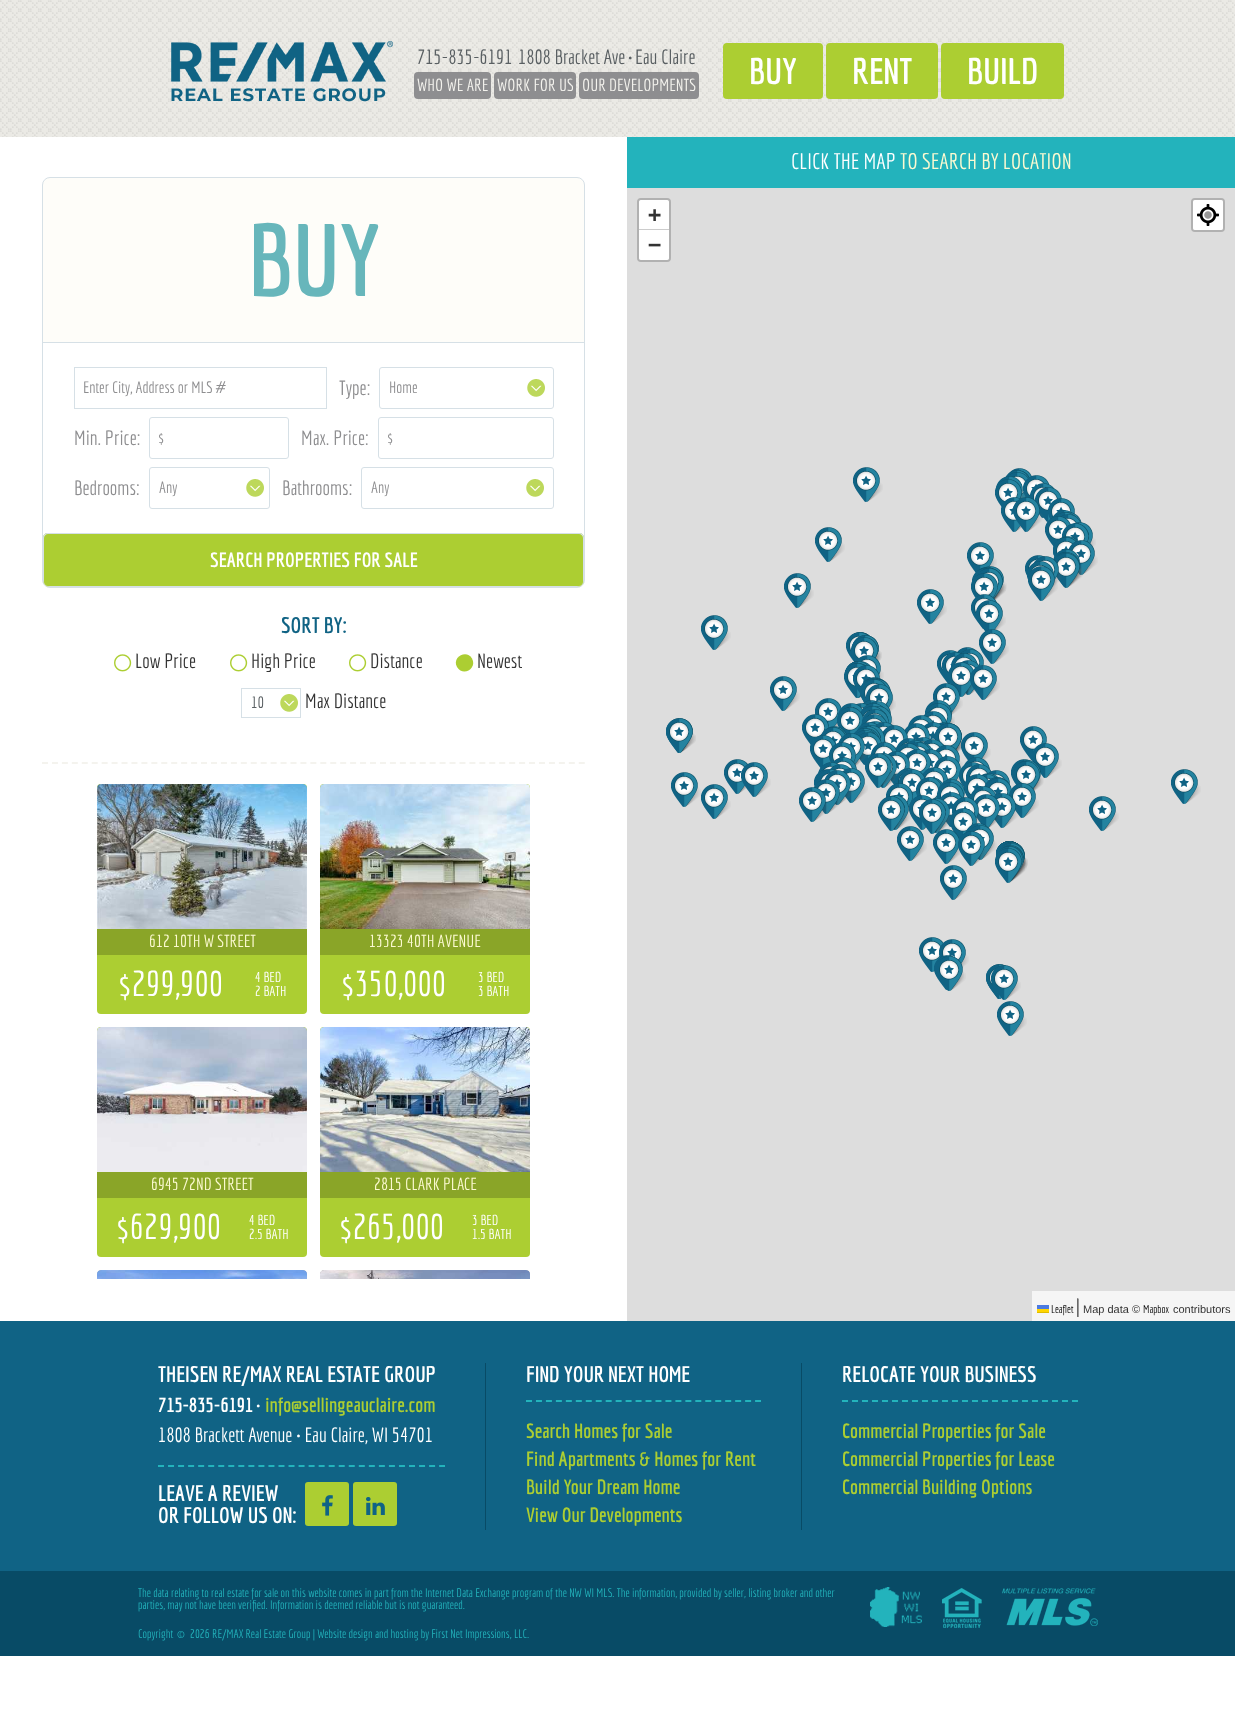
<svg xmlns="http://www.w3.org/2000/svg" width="1235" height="1725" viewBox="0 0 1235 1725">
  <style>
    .t1 { font: 20px Economica; fill: #595f62; }
    .t2 { font: 17px Economica; fill: #f4f3ee; }
    .t3 { font: bold 36px Economica; fill: #fff; }
    .t4 { font: bold 100px Economica; fill: #67b6bb; }
    .t5 { font: 16px Economica; fill: #8e8e90; }
    .t6 { font: 20px Economica; fill: #8e8e90; }
    .t7 { font: bold 20px Economica; fill: #fff; }
    .t8 { font: bold 22px Economica; fill: #106384; }
    .t9 { font: 20px Economica; fill: #333; }
    .t10 { font: 16px Economica; fill: #595f62; }
    .t11 { font: 17px Economica; fill: #fcfad1; }
    .t12 { font: 35px Economica; fill: #fff; }
    .t13 { font: 14px Economica; fill: #fff; }
    .t14 { font: 22px Economica; fill: #fff; }
    .t15 { font: 22px Economica; fill: #fcfad1; }
    .t16 { font: bold 22px DejaVu Sans Mono; fill: #333; }
    .t17 { font: 11px Economica; fill: #000; }
    .t18 { font: 11px Liberation Sans; fill: #333; }
    .t19 { font: bold 22px Economica; fill: #fff; }
    .t20 { font: 20px Economica; fill: #fff; }
    .t21 { font: bold 20px Economica; fill: #acce32; }
    .t22 { font: 12px Economica; fill: #23b3bc; }
  </style>
  <rect width="100%" height="100%" fill="#fff"/>
  <rect x="0" y="0" width="1235" height="137" fill="#f4f3ee"/>
  <image x="0" y="0" width="1235" height="137" href="images/1.png"/>
  <image x="171" y="41" width="222" height="61" href="images/2.png"/>
  <text x="417" y="64" class="t1">715-835-6191</text>
  <text x="518" y="64" class="t1">1808 Bracket Ave</text>
  <text x="628" y="64" class="t1">•</text>
  <text x="635" y="64" class="t1">Eau Claire</text>
  <rect x="414" y="72" width="77" height="27" rx="4" fill="#8e8e90"/>
  <text x="417" y="91" class="t2">WHO WE ARE</text>
  <rect x="494" y="72" width="82" height="27" rx="4" fill="#8e8e90"/>
  <text x="497" y="91" class="t2">WORK FOR US</text>
  <rect x="579" y="72" width="120" height="27" rx="4" fill="#8e8e90"/>
  <text x="582" y="91" class="t2">OUR DEVELOPMENTS</text>
  <rect x="723" y="43" width="100" height="56" rx="4" fill="#acce32"/>
  <text x="749" y="84" class="t3">BUY</text>
  <rect x="826" y="43" width="112" height="56" rx="4" fill="#acce32"/>
  <text x="852" y="84" class="t3">RENT</text>
  <rect x="941" y="43" width="123" height="56" rx="4" fill="#acce32"/>
  <text x="967" y="84" class="t3">BUILD</text>
  <rect x="42.5" y="177.5" width="542" height="410" rx="7.5" fill="#fefdf9" stroke="#d6e0e6"/>
  <text x="248" y="296" class="t4">BUY</text>
  <path d="M43 342H584V580C584 584 581 587 577 587H50C46 587 43 584 43 580Z" fill="#fff"/>
  <rect x="43" y="342" width="541" height="1" fill="#d6e0e6"/>
  <rect x="74.5" y="367.5" width="252" height="41" fill="none" stroke="#d6e0e6"/>
  <text x="83" y="393" class="t5">Enter City, Address or MLS #</text>
  <text x="339" y="395" class="t6">Type:</text>
  <image x="527" y="379" width="18" height="18" href="images/3.png"/>
  <rect x="379.5" y="367.5" width="174" height="41" rx="2.5" fill="none" stroke="#d6e0e6"/>
  <text x="389" y="393" class="t5">Home</text>
  <text x="74" y="445" class="t6">Min. Price:</text>
  <rect x="149.5" y="417.5" width="139" height="41" rx="2.5" fill="none" stroke="#d6e0e6"/>
  <text x="158" y="443" class="t5">$</text>
  <text x="301" y="445" class="t6">Max. Price:</text>
  <rect x="378.5" y="417.5" width="175" height="41" rx="2.5" fill="none" stroke="#d6e0e6"/>
  <text x="387" y="443" class="t5">$</text>
  <text x="74" y="495" class="t6">Bedrooms:</text>
  <image x="246" y="479" width="18" height="18" href="images/3.png"/>
  <rect x="149.5" y="467.5" width="120" height="41" rx="2.5" fill="none" stroke="#d6e0e6"/>
  <text x="159" y="493" class="t5">Any</text>
  <text x="282" y="495" class="t6">Bathrooms:</text>
  <image x="526" y="479" width="18" height="18" href="images/3.png"/>
  <rect x="361.5" y="467.5" width="192" height="41" rx="2.5" fill="none" stroke="#d6e0e6"/>
  <text x="371" y="493" class="t5">Any</text>
  <path d="M48 533H579C582 533 584 535 584 538V580C584 584 581 587 577 587H50C46 587 43 584 43 580V538C43 535 45 533 48 533Z" fill="#acce32"/>
  <path d="M48 533C45 533 43 535 43 538V580C43 584 46 587 50 587H577C581 587 584 584 584 580V538C584 535 582 533 579 533ZM48 534C46 534 44 536 44 538V582C44 584 46 586 48 586H579C581 586 583 584 583 582V538C583 536 581 534 579 534Z" fill="#d6e0e6" fill-rule="evenodd"/>
  <text x="210" y="567" class="t7">SEARCH PROPERTIES FOR SALE</text>
  <text x="281" y="633" class="t8">SORT BY:</text>
  <image x="114" y="654" width="18" height="18" href="images/4.png"/>
  <text x="135" y="668" class="t9">Low Price</text>
  <image x="230" y="654" width="18" height="18" href="images/4.png"/>
  <text x="251" y="668" class="t9">High Price</text>
  <image x="349" y="654" width="18" height="18" href="images/4.png"/>
  <text x="370" y="668" class="t9">Distance</text>
  <path d="M472 658.5C477.5 668.5 463 677 457 667C451.5 657.5 466.5 649 472 658.5Z" fill="#acce32"/>
  <text x="477" y="668" class="t9">Newest</text>
  <image x="280" y="694" width="18" height="18" href="images/3.png"/>
  <rect x="241.5" y="688.5" width="59" height="29" fill="none" stroke="#d6e0e6"/>
  <text x="251" y="708" class="t10">10</text>
  <text x="305" y="708" class="t9">Max Distance</text>
  <path d="M42 763H585" fill="none" stroke="#f4f3ee" stroke-width="2" stroke-dasharray="6 3.94"/>
  <rect x="97" y="784" width="210" height="230" rx="4" fill="#acce32"/>
  <image x="97" y="784" width="210" height="145" href="images/5.png"/>
  <rect x="97" y="929" width="210" height="26" fill="#8aa528"/>
  <text x="149" y="947" class="t11">612 10TH W STREET</text>
  <text x="118" y="996" class="t12">$299,900</text>
  <text x="255" y="982" class="t13">4 BED</text>
  <text x="255" y="996" class="t13">2 BATH</text>
  <rect x="320" y="784" width="210" height="230" rx="4" fill="#acce32"/>
  <image x="320" y="784" width="210" height="145" href="images/6.png"/>
  <rect x="320" y="929" width="210" height="26" fill="#8aa528"/>
  <text x="369" y="947" class="t11">13323 40TH AVENUE</text>
  <text x="341" y="996" class="t12">$350,000</text>
  <text x="478" y="982" class="t13">3 BED</text>
  <text x="478" y="996" class="t13">3 BATH</text>
  <rect x="97" y="1027" width="210" height="230" rx="4" fill="#acce32"/>
  <image x="97" y="1027" width="210" height="145" href="images/7.png"/>
  <rect x="97" y="1172" width="210" height="26" fill="#8aa528"/>
  <text x="151" y="1190" class="t11">6945 72ND STREET</text>
  <text x="116" y="1239" class="t12">$629,900</text>
  <text x="249" y="1225" class="t13">4 BED</text>
  <text x="249" y="1239" class="t13">2.5 BATH</text>
  <rect x="320" y="1027" width="210" height="230" rx="4" fill="#acce32"/>
  <image x="320" y="1027" width="210" height="145" href="images/8.png"/>
  <rect x="320" y="1172" width="210" height="26" fill="#8aa528"/>
  <text x="374" y="1190" class="t11">2815 CLARK PLACE</text>
  <text x="339" y="1239" class="t12">$265,000</text>
  <text x="472" y="1225" class="t13">3 BED</text>
  <text x="472" y="1239" class="t13">1.5 BATH</text>
  <path d="M101 1270H303C305 1270 307 1272 307 1274V1279H97V1274C97 1272 99 1270 101 1270Z" fill="#aaa"/>
  <image x="97" y="1270" width="210" height="9" href="images/9.png"/>
  <path d="M324 1270H526C528 1270 530 1272 530 1274V1279H320V1274C320 1272 322 1270 324 1270Z" fill="#aaa"/>
  <image x="320" y="1270" width="210" height="9" href="images/10.png"/>
  <rect x="627" y="137" width="608" height="51" fill="#23b3bc"/>
  <text x="791" y="169" class="t14">CLICK THE MAP</text>
  <text x="900" y="169" class="t15">TO SEARCH BY LOCATION</text>
  <rect x="627" y="188" width="608" height="1133" fill="#ddd"/>
  <rect x="638" y="199" width="32" height="62" rx="3" fill="none" stroke="#b1b1b1" stroke-width="2"/>
  <path d="M641 200H667C668 200 669 201 669 202V230H639V202C639 201 640 200 641 200Z" fill="#fff"/>
  <rect x="639" y="229" width="30" height="1" fill="#ccc"/>
  <text x="648" y="222" class="t16">+</text>
  <path d="M639 230H669V258C669 259 668 260 667 260H641C640 260 639 259 639 258Z" fill="#fff"/>
  <text x="648" y="252" class="t16">−</text>
  <rect x="1192" y="199" width="32" height="32" rx="3" fill="none" stroke="#b1b1b1" stroke-width="2"/>
  <rect x="1193" y="200" width="30" height="30" rx="2" fill="#fff"/>
  <image x="1197" y="204" width="22" height="22" href="images/11.png"/>
  <rect x="1032" y="1291" width="203" height="30" fill="#f5f5f5"/>
  <text x="1051" y="1313" class="t17">Leaflet</text>
  <rect x="1037" y="1305" width="12" height="4" fill="#4c7be1"/>
  <rect x="1037" y="1309" width="12" height="3" fill="#ffd500"/>
  <rect x="1037" y="1312" width="12" height="1" fill="#e0bc00"/>
  <text x="1076" y="1313" class="t9">|</text>
  <text x="1083" y="1313" class="t18">Map data ©</text>
  <text x="1143" y="1313" class="t17">Mapbox</text>
  <text x="1173" y="1313" class="t18">contributors</text>
  <image x="853" y="467" width="30" height="35" href="images/12.png"/>
  <image x="1006" y="468" width="26" height="30" href="images/13.png"/>
  <image x="1005" y="470" width="25" height="28" href="images/14.png"/>
  <image x="1005" y="470" width="25" height="28" href="images/15.png"/>
  <image x="1007" y="472" width="22" height="27" href="images/16.png"/>
  <image x="1023" y="475" width="27" height="23" href="images/17.png"/>
  <image x="996" y="476" width="30" height="23" href="images/18.png"/>
  <image x="995" y="479" width="30" height="29" href="images/19.png"/>
  <image x="1030" y="483" width="25" height="35" href="images/20.png"/>
  <image x="1001" y="497" width="21" height="35" href="images/21.png"/>
  <image x="1035" y="487" width="27" height="35" href="images/23.png"/>
  <image x="1013" y="497" width="30" height="35" href="images/22.png"/>
  <image x="1048" y="498" width="30" height="21" href="images/24.png"/>
  <image x="1051" y="510" width="23" height="9" href="images/25.png"/>
  <image x="1064" y="512" width="18" height="11" href="images/27.png"/>
  <image x="1055" y="512" width="22" height="6" href="images/26.png"/>
  <image x="1060" y="514" width="21" height="11" href="images/28.png"/>
  <image x="1045" y="516" width="26" height="31" href="images/29.png"/>
  <image x="1073" y="522" width="23" height="25" href="images/30.png"/>
  <image x="815" y="527" width="30" height="35" href="images/12.png"/>
  <image x="1062" y="523" width="29" height="21" href="images/31.png"/>
  <image x="1054" y="536" width="24" height="9" href="images/32.png"/>
  <image x="1053" y="537" width="24" height="20" href="images/33.png"/>
  <image x="967" y="542" width="30" height="31" href="images/34.png"/>
  <image x="1053" y="537" width="24" height="20" href="images/35.png"/>
  <image x="1068" y="540" width="30" height="35" href="images/36.png"/>
  <image x="1053" y="549" width="30" height="31" href="images/37.png"/>
  <image x="1053" y="552" width="29" height="35" href="images/38.png"/>
  <image x="1055" y="552" width="28" height="35" href="images/39.png"/>
  <image x="1025" y="555" width="20" height="23" href="images/40.png"/>
  <image x="1054" y="553" width="29" height="35" href="images/41.png"/>
  <image x="1033" y="556" width="29" height="31" href="images/42.png"/>
  <image x="984" y="566" width="23" height="33" href="images/43.png"/>
  <image x="1027" y="561" width="30" height="29" href="images/44.png"/>
  <image x="973" y="567" width="29" height="30" href="images/45.png"/>
  <image x="1028" y="566" width="30" height="35" href="images/46.png"/>
  <image x="978" y="567" width="26" height="31" href="images/47.png"/>
  <image x="972" y="568" width="29" height="30" href="images/48.png"/>
  <image x="977" y="568" width="29" height="32" href="images/49.png"/>
  <image x="784" y="573" width="30" height="35" href="images/12.png"/>
  <image x="977" y="568" width="29" height="32" href="images/50.png"/>
  <image x="917" y="589" width="30" height="35" href="images/12.png"/>
  <image x="971" y="573" width="29" height="28" href="images/51.png"/>
  <image x="971" y="594" width="27" height="35" href="images/52.png"/>
  <image x="701" y="615" width="30" height="35" href="images/12.png"/>
  <image x="976" y="600" width="30" height="32" href="images/53.png"/>
  <image x="848" y="632" width="23" height="29" href="images/56.png"/>
  <image x="848" y="632" width="23" height="29" href="images/57.png"/>
  <image x="846" y="632" width="23" height="30" href="images/54.png"/>
  <image x="979" y="629" width="30" height="35" href="images/55.png"/>
  <image x="852" y="635" width="30" height="26" href="images/58.png"/>
  <image x="852" y="635" width="30" height="26" href="images/59.png"/>
  <image x="851" y="637" width="30" height="25" href="images/60.png"/>
  <image x="957" y="647" width="27" height="19" href="images/61.png"/>
  <image x="937" y="650" width="22" height="35" href="images/62.png"/>
  <image x="960" y="649" width="26" height="17" href="images/63.png"/>
  <image x="942" y="652" width="20" height="33" href="images/64.png"/>
  <image x="855" y="655" width="29" height="25" href="images/65.png"/>
  <image x="951" y="653" width="27" height="14" href="images/66.png"/>
  <image x="845" y="661" width="18" height="10" href="images/67.png"/>
  <image x="960" y="660" width="20" height="35" href="images/68.png"/>
  <image x="845" y="661" width="18" height="10" href="images/69.png"/>
  <image x="845" y="661" width="18" height="10" href="images/70.png"/>
  <image x="845" y="661" width="18" height="10" href="images/71.png"/>
  <image x="856" y="661" width="16" height="6" href="images/73.png"/>
  <image x="845" y="661" width="24" height="10" href="images/72.png"/>
  <image x="948" y="662" width="26" height="35" href="images/74.png"/>
  <image x="846" y="663" width="21" height="35" href="images/76.png"/>
  <image x="844" y="663" width="22" height="35" href="images/75.png"/>
  <image x="770" y="676" width="30" height="35" href="images/12.png"/>
  <image x="853" y="665" width="27" height="30" href="images/77.png"/>
  <image x="970" y="665" width="30" height="35" href="images/78.png"/>
  <image x="861" y="677" width="24" height="9" href="images/79.png"/>
  <image x="872" y="678" width="21" height="25" href="images/83.png"/>
  <image x="860" y="678" width="20" height="25" href="images/80.png"/>
  <image x="860" y="678" width="20" height="25" href="images/81.png"/>
  <image x="863" y="678" width="20" height="24" href="images/82.png"/>
  <image x="876" y="678" width="7" height="3" href="images/84.png"/>
  <image x="877" y="679" width="6" height="2" href="images/89.png"/>
  <image x="882" y="680" width="1" height="1" href="images/90.png"/>
  <image x="872" y="679" width="21" height="25" href="images/86.png"/>
  <image x="872" y="679" width="21" height="25" href="images/87.png"/>
  <image x="887" y="684" width="6" height="20" href="images/93.png"/>
  <image x="873" y="679" width="21" height="26" href="images/88.png"/>
  <image x="863" y="679" width="24" height="24" href="images/85.png"/>
  <image x="866" y="684" width="30" height="28" href="images/91.png"/>
  <image x="933" y="683" width="30" height="33" href="images/92.png"/>
  <image x="815" y="698" width="27" height="30" href="images/94.png"/>
  <image x="862" y="700" width="16" height="5" href="images/95.png"/>
  <image x="925" y="700" width="30" height="25" href="images/96.png"/>
  <image x="856" y="703" width="12" height="7" href="images/99.png"/>
  <image x="838" y="703" width="25" height="12" href="images/97.png"/>
  <image x="868" y="701" width="26" height="25" href="images/98.png"/>
  <image x="860" y="703" width="24" height="10" href="images/100.png"/>
  <image x="925" y="703" width="30" height="22" href="images/101.png"/>
  <image x="874" y="706" width="21" height="20" href="images/104.png"/>
  <image x="860" y="706" width="24" height="11" href="images/103.png"/>
  <image x="837" y="707" width="27" height="28" href="images/102.png"/>
  <image x="802" y="714" width="27" height="31" href="images/105.png"/>
  <image x="862" y="709" width="27" height="14" href="images/106.png"/>
  <image x="923" y="711" width="24" height="13" href="images/107.png"/>
  <image x="666" y="718" width="30" height="35" href="images/12.png"/>
  <image x="861" y="714" width="26" height="11" href="images/108.png"/>
  <image x="908" y="715" width="26" height="11" href="images/109.png"/>
  <image x="666" y="718" width="30" height="35" href="images/110.png"/>
  <image x="869" y="721" width="13" height="4" href="images/111.png"/>
  <image x="856" y="722" width="22" height="9" href="images/112.png"/>
  <image x="875" y="722" width="19" height="10" href="images/113.png"/>
  <image x="938" y="722" width="23" height="27" href="images/116.png"/>
  <image x="924" y="722" width="18" height="18" href="images/115.png"/>
  <image x="904" y="723" width="28" height="17" href="images/114.png"/>
  <image x="935" y="723" width="28" height="29" href="images/117.png"/>
  <image x="935" y="723" width="28" height="29" href="images/118.png"/>
  <image x="821" y="726" width="26" height="9" href="images/119.png"/>
  <image x="882" y="725" width="26" height="24" href="images/121.png"/>
  <image x="865" y="725" width="23" height="18" href="images/120.png"/>
  <image x="935" y="723" width="28" height="29" href="images/122.png"/>
  <image x="820" y="727" width="26" height="9" href="images/123.png"/>
  <image x="857" y="726" width="26" height="17" href="images/124.png"/>
  <image x="1020" y="726" width="30" height="35" href="images/12.png"/>
  <image x="820" y="727" width="26" height="17" href="images/125.png"/>
  <image x="862" y="728" width="18" height="11" href="images/127.png"/>
  <image x="853" y="728" width="24" height="35" href="images/126.png"/>
  <image x="856" y="730" width="21" height="35" href="images/128.png"/>
  <image x="810" y="735" width="26" height="34" href="images/129.png"/>
  <image x="859" y="732" width="23" height="33" href="images/131.png"/>
  <image x="838" y="733" width="30" height="33" href="images/130.png"/>
  <image x="915" y="737" width="17" height="6" href="images/133.png"/>
  <image x="896" y="738" width="22" height="13" href="images/132.png"/>
  <image x="961" y="732" width="30" height="29" href="images/134.png"/>
  <image x="829" y="742" width="30" height="25" href="images/135.png"/>
  <image x="871" y="742" width="26" height="14" href="images/136.png"/>
  <image x="923" y="739" width="21" height="12" href="images/138.png"/>
  <image x="906" y="740" width="18" height="4" href="images/137.png"/>
  <image x="916" y="742" width="17" height="8" href="images/141.png"/>
  <image x="912" y="742" width="19" height="9" href="images/139.png"/>
  <image x="895" y="743" width="25" height="13" href="images/140.png"/>
  <image x="935" y="745" width="28" height="25" href="images/142.png"/>
  <image x="1032" y="743" width="30" height="35" href="images/143.png"/>
  <image x="924" y="749" width="19" height="20" href="images/147.png"/>
  <image x="906" y="749" width="28" height="26" href="images/144.png"/>
  <image x="888" y="751" width="25" height="34" href="images/146.png"/>
  <image x="879" y="753" width="21" height="35" href="images/150.png"/>
  <image x="865" y="753" width="30" height="35" href="images/145.png"/>
  <image x="724" y="759" width="24" height="35" href="images/148.png"/>
  <image x="832" y="757" width="25" height="13" href="images/149.png"/>
  <image x="934" y="756" width="27" height="27" href="images/151.png"/>
  <image x="963" y="757" width="27" height="13" href="images/152.png"/>
  <image x="1011" y="759" width="30" height="30" href="images/153.png"/>
  <image x="1014" y="760" width="30" height="31" href="images/154.png"/>
  <image x="741" y="762" width="30" height="35" href="images/155.png"/>
  <image x="818" y="762" width="22" height="11" href="images/156.png"/>
  <image x="959" y="762" width="22" height="26" href="images/157.png"/>
  <image x="1016" y="761" width="27" height="30" href="images/158.png"/>
  <image x="829" y="764" width="22" height="33" href="images/160.png"/>
  <image x="814" y="769" width="18" height="18" href="images/159.png"/>
  <image x="842" y="768" width="26" height="35" href="images/161.png"/>
  <image x="895" y="768" width="20" height="16" href="images/162.png"/>
  <image x="922" y="767" width="26" height="16" href="images/163.png"/>
  <image x="966" y="764" width="26" height="17" href="images/164.png"/>
  <image x="817" y="769" width="20" height="14" href="images/165.png"/>
  <image x="899" y="769" width="26" height="33" href="images/166.png"/>
  <image x="1171" y="769" width="30" height="35" href="images/12.png"/>
  <image x="671" y="772" width="30" height="35" href="images/12.png"/>
  <image x="824" y="770" width="30" height="35" href="images/167.png"/>
  <image x="987" y="770" width="26" height="20" href="images/168.png"/>
  <image x="982" y="773" width="17" height="5" href="images/170.png"/>
  <image x="982" y="774" width="15" height="7" href="images/172.png"/>
  <image x="964" y="774" width="25" height="24" href="images/169.png"/>
  <image x="927" y="777" width="16" height="7" href="images/173.png"/>
  <image x="916" y="777" width="25" height="22" href="images/171.png"/>
  <image x="984" y="777" width="27" height="10" href="images/174.png"/>
  <image x="984" y="777" width="27" height="10" href="images/175.png"/>
  <image x="813" y="779" width="30" height="35" href="images/176.png"/>
  <image x="938" y="779" width="30" height="19" href="images/177.png"/>
  <image x="987" y="778" width="25" height="17" href="images/178.png"/>
  <image x="701" y="784" width="30" height="35" href="images/179.png"/>
  <image x="799" y="787" width="30" height="35" href="images/180.png"/>
  <image x="886" y="783" width="27" height="30" href="images/181.png"/>
  <image x="937" y="782" width="27" height="17" href="images/182.png"/>
  <image x="970" y="786" width="26" height="15" href="images/183.png"/>
  <image x="1009" y="783" width="30" height="35" href="images/184.png"/>
  <image x="909" y="795" width="23" height="35" href="images/186.png"/>
  <image x="889" y="795" width="23" height="35" href="images/185.png"/>
  <image x="939" y="792" width="24" height="35" href="images/187.png"/>
  <image x="993" y="793" width="26" height="35" href="images/189.png"/>
  <image x="974" y="794" width="29" height="35" href="images/188.png"/>
  <image x="878" y="796" width="29" height="35" href="images/190.png"/>
  <image x="930" y="798" width="22" height="35" href="images/191.png"/>
  <image x="952" y="797" width="30" height="27" href="images/192.png"/>
  <image x="1089" y="796" width="30" height="35" href="images/12.png"/>
  <image x="919" y="799" width="30" height="35" href="images/193.png"/>
  <image x="950" y="808" width="27" height="31" href="images/194.png"/>
  <image x="965" y="823" width="30" height="30" href="images/195.png"/>
  <image x="897" y="826" width="30" height="35" href="images/196.png"/>
  <image x="933" y="829" width="29" height="35" href="images/197.png"/>
  <image x="968" y="825" width="29" height="35" href="images/198.png"/>
  <image x="958" y="831" width="30" height="35" href="images/199.png"/>
  <image x="996" y="841" width="30" height="29" href="images/200.png"/>
  <image x="996" y="841" width="30" height="29" href="images/201.png"/>
  <image x="996" y="841" width="30" height="29" href="images/202.png"/>
  <image x="996" y="841" width="30" height="29" href="images/203.png"/>
  <image x="996" y="841" width="30" height="29" href="images/204.png"/>
  <image x="996" y="841" width="30" height="29" href="images/205.png"/>
  <image x="996" y="841" width="29" height="29" href="images/206.png"/>
  <image x="996" y="841" width="29" height="29" href="images/207.png"/>
  <image x="996" y="841" width="29" height="29" href="images/208.png"/>
  <image x="999" y="842" width="29" height="33" href="images/209.png"/>
  <image x="1005" y="842" width="23" height="33" href="images/210.png"/>
  <image x="1001" y="843" width="27" height="34" href="images/211.png"/>
  <image x="997" y="845" width="30" height="35" href="images/212.png"/>
  <image x="998" y="846" width="29" height="35" href="images/214.png"/>
  <image x="996" y="846" width="29" height="35" href="images/213.png"/>
  <image x="940" y="865" width="30" height="35" href="images/215.png"/>
  <image x="995" y="848" width="30" height="35" href="images/216.png"/>
  <image x="919" y="937" width="25" height="35" href="images/217.png"/>
  <image x="939" y="939" width="30" height="29" href="images/218.png"/>
  <image x="934" y="955" width="30" height="35" href="images/219.png"/>
  <image x="937" y="956" width="29" height="35" href="images/220.png"/>
  <image x="986" y="964" width="30" height="35" href="images/12.png"/>
  <image x="986" y="964" width="30" height="35" href="images/110.png"/>
  <image x="991" y="965" width="30" height="35" href="images/221.png"/>
  <image x="997" y="1001" width="30" height="35" href="images/12.png"/>
  <rect x="0" y="1321" width="1235" height="250" fill="#106385"/>
  <text x="158" y="1382" class="t19">THEISEN RE/MAX REAL ESTATE GROUP</text>
  <text x="158" y="1412" class="t7">715-835-6191</text>
  <text x="256" y="1412" class="t20">•</text>
  <text x="265" y="1412" class="t21">info@sellingeauclaire.com</text>
  <text x="158" y="1442" class="t20">1808 Brackett Avenue • Eau Claire, WI 54701</text>
  <path d="M158 1466H445" fill="none" stroke="#23b3bc" stroke-width="2" stroke-dasharray="6 4.04"/>
  <text x="158" y="1501" class="t19">LEAVE A REVIEW</text>
  <text x="158" y="1523" class="t19">OR FOLLOW US ON:</text>
  <rect x="305" y="1482" width="44" height="44" rx="3" fill="#acce32"/>
  <image x="322" y="1495" width="11" height="21" href="images/222.png"/>
  <rect x="353" y="1482" width="44" height="44" rx="3" fill="#acce32"/>
  <image x="366" y="1497" width="19" height="18" href="images/223.png"/>
  <rect x="485" y="1363" width="1" height="167" fill="#084b66"/>
  <text x="526" y="1382" class="t19">FIND YOUR NEXT HOME</text>
  <path d="M526 1401H761" fill="none" stroke="#23b3bc" stroke-width="2" stroke-dasharray="6 3.96"/>
  <text x="526" y="1438" class="t21">Search Homes for Sale</text>
  <text x="526" y="1466" class="t21">Find Apartments &amp; Homes for Rent</text>
  <text x="526" y="1494" class="t21">Build Your Dream Home</text>
  <text x="526" y="1522" class="t21">View Our Developments</text>
  <rect x="801" y="1363" width="1" height="167" fill="#084b66"/>
  <text x="842" y="1382" class="t19">RELOCATE YOUR BUSINESS</text>
  <path d="M842 1401H1078" fill="none" stroke="#23b3bc" stroke-width="2" stroke-dasharray="6 4"/>
  <text x="842" y="1438" class="t21">Commercial Properties for Sale</text>
  <text x="842" y="1466" class="t21">Commercial Properties for Lease</text>
  <text x="842" y="1494" class="t21">Commercial Building Options</text>
  <rect x="0" y="1571" width="1235" height="85" fill="#084b66"/>
  <text x="138" y="1597" class="t22">The data relating to real estate for sale on this website comes in part from the Internet Data Exchange program of the NW WI MLS. The information, provided by seller, listing broker and other</text>
  <text x="138" y="1609" class="t22">parties, may not have been verified. Information is deemed reliable but is not guaranteed.</text>
  <image x="870" y="1587" width="52" height="40" href="images/224.png"/>
  <image x="942" y="1588" width="40" height="40" href="images/225.png"/>
  <image x="1002" y="1588" width="96" height="38" href="images/226.png"/>
  <text x="138" y="1638" class="t22">Copyright</text>
  <text x="177" y="1638" class="t22">©</text>
  <text x="190" y="1638" class="t22">2026 RE/MAX Real Estate Group | Website design and hosting by First Net Impressions, LLC.</text>
</svg>
